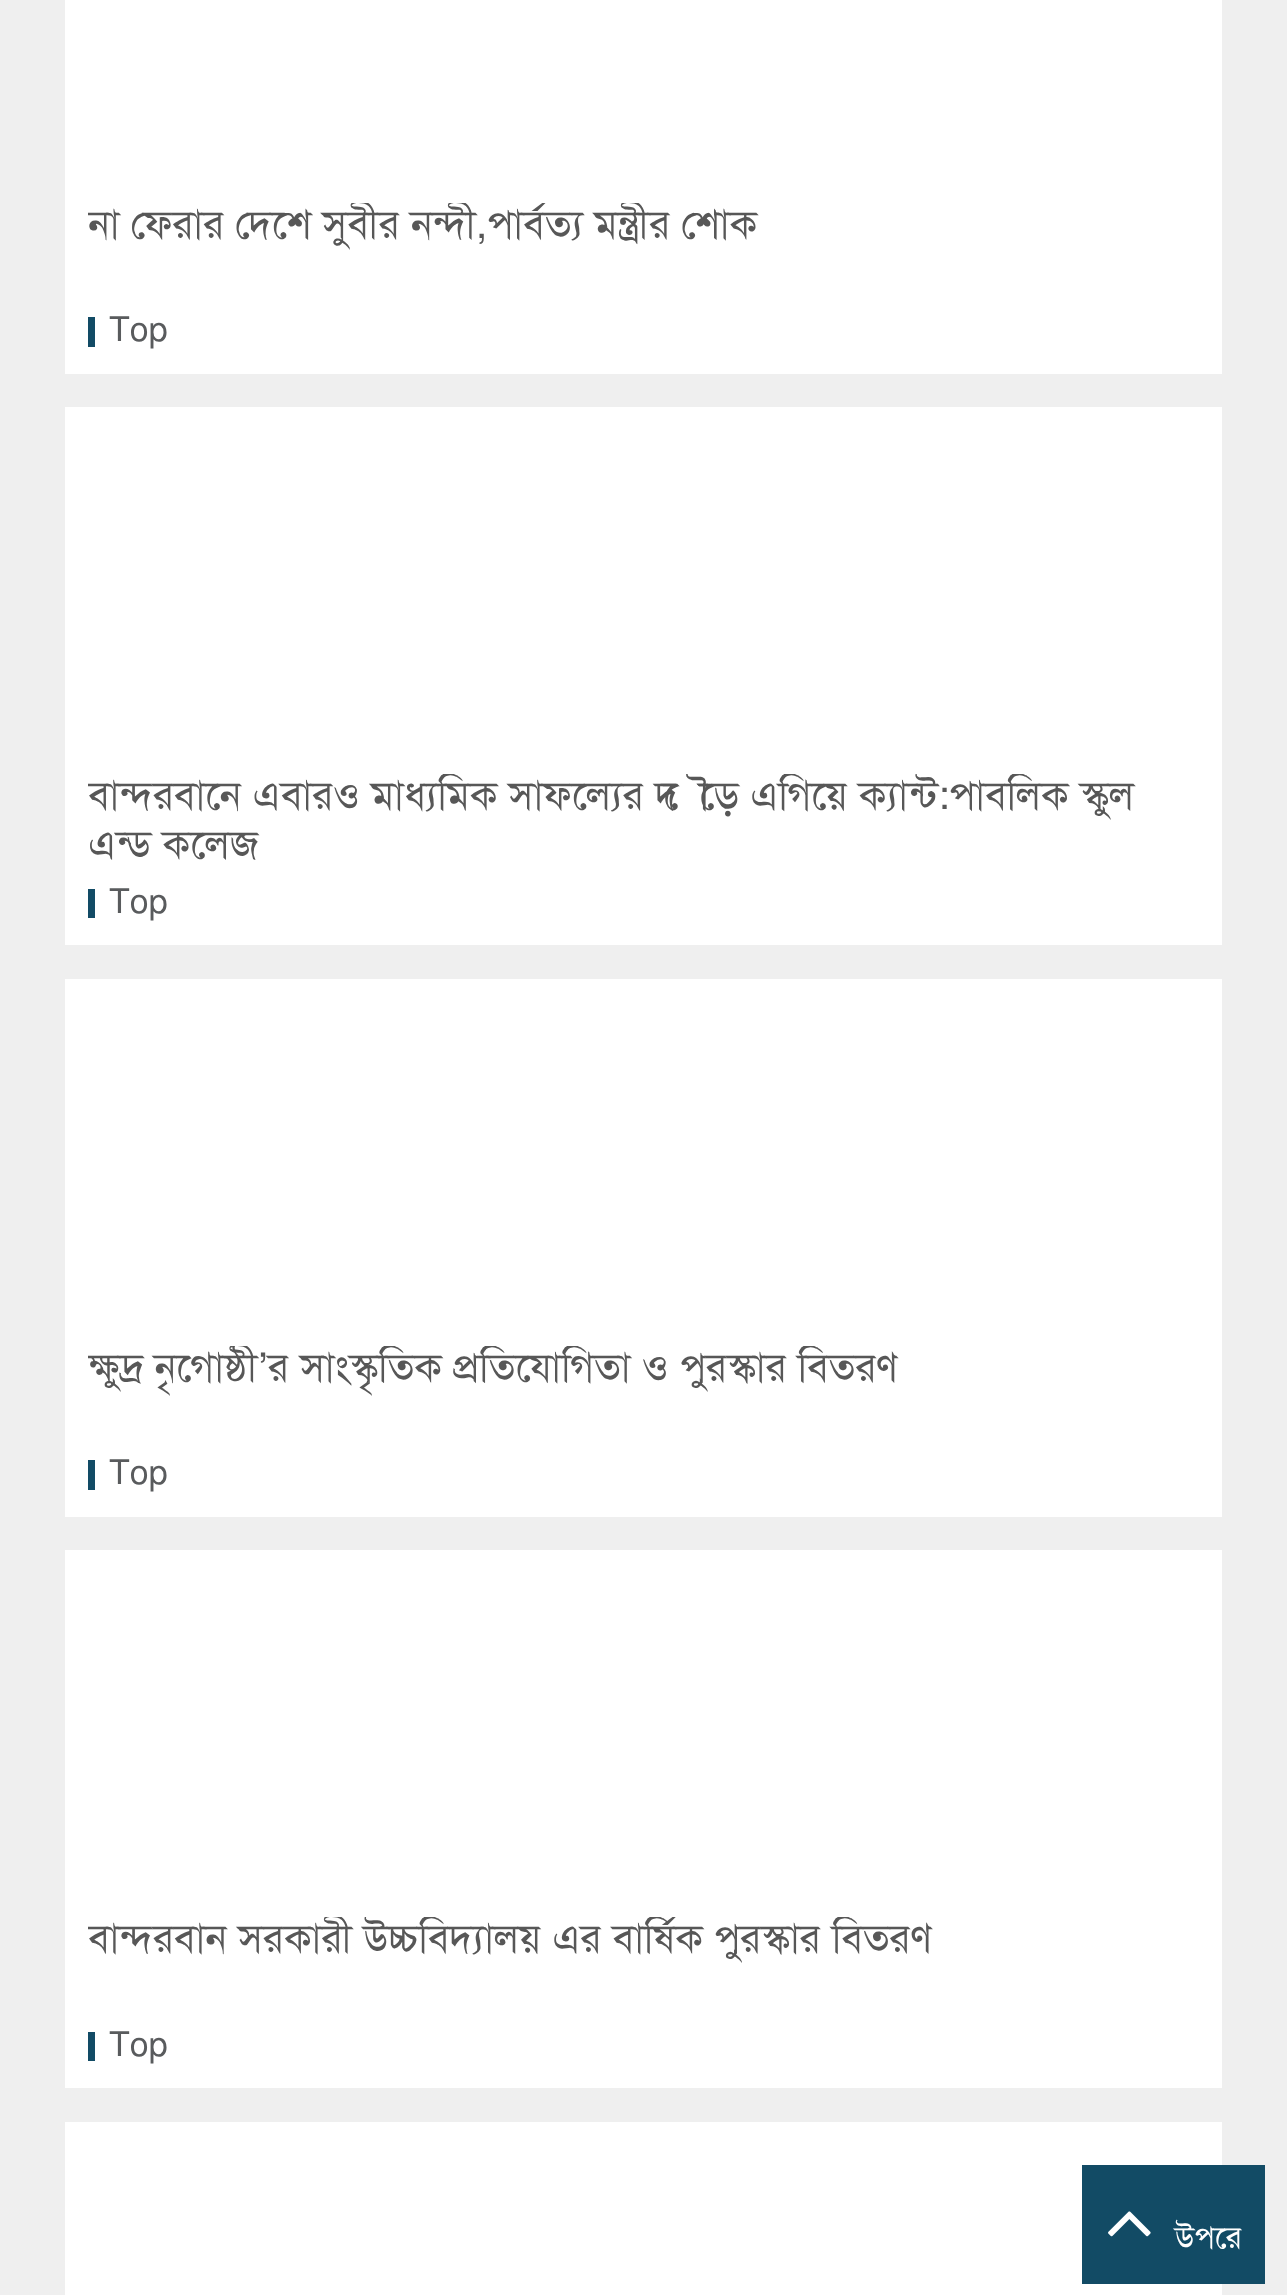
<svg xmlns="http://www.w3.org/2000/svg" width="1287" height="2295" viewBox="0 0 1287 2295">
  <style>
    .t1 { font: 40.5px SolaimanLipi; fill: #575757; }
    .t2 { font: 34px SolaimanLipi; fill: #595b5d; }
    .t3 { font: 40.5px 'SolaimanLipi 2'; fill: #575757; }
    .t4 { font: 31.5px SolaimanLipi; fill: #fff; }
  </style>
  <defs>
    <clipPath id="clip1"><rect x="88" y="203" width="1111" height="108"/></clipPath>
    <clipPath id="clip2"><rect x="88" y="774" width="1111" height="108"/></clipPath>
    <clipPath id="clip3"><rect x="88" y="1346" width="1111" height="108"/></clipPath>
    <clipPath id="clip4"><rect x="88" y="1917" width="1111" height="108"/></clipPath>
  </defs>
  <rect width="100%" height="100%" fill="#efefef"/>
  <rect x="65" y="0" width="1157" height="374" fill="#fff"/>
  <g clip-path="url(#clip1)">
    <text x="88" y="238" class="t1">না ফেরার দেশে সুবীর নন্দী,পার্বত্য মন্ত্রীর শোক</text>
  </g>
  <rect x="88" y="317" width="7" height="30" fill="#124b65"/>
  <text x="109" y="341" class="t2">Top</text>
  <rect x="65" y="407" width="1157" height="538" fill="#fff"/>
  <g clip-path="url(#clip2)">
    <text x="88" y="809" class="t1">বান্দরবানে এবারও মাধ্যমিক সাফল্যের দৌড়ে এগিয়ে ক্যান্ট:পাবলিক স্কুল</text>
  </g>
  <text x="88" y="858" class="t1">এন্ড কলেজ</text>
  <rect x="88" y="889" width="7" height="29" fill="#124b65"/>
  <text x="109" y="913" class="t2">Top</text>
  <rect x="65" y="979" width="1157" height="538" fill="#fff"/>
  <g clip-path="url(#clip3)">
    <text x="88" y="1381" class="t1">ক্ষুদ্র নৃগোষ্ঠী</text>
  </g>
  <text x="258" y="1381" class="t3">’</text>
  <g clip-path="url(#clip3)">
    <text x="268" y="1381" class="t1">র সাংস্কৃতিক প্রতিযোগিতা ও পুরস্কার বিতরণ</text>
  </g>
  <rect x="88" y="1460" width="7" height="30" fill="#124b65"/>
  <text x="109" y="1484" class="t2">Top</text>
  <rect x="65" y="1550" width="1157" height="538" fill="#fff"/>
  <g clip-path="url(#clip4)">
    <text x="88" y="1952" class="t1">বান্দরবান সরকারী উচ্চবিদ্যালয় এর বার্ষিক পুরস্কার বিতরণ</text>
  </g>
  <rect x="88" y="2032" width="7" height="29" fill="#124b65"/>
  <text x="109" y="2056" class="t2">Top</text>
  <rect x="65" y="2122" width="1157" height="173" fill="#fff"/>
  <rect x="1082" y="2165" width="183" height="119" fill="#124b65"/>
  <image x="1108" y="2211" width="43" height="26" href="images/1.png"/>
  <text x="1175" y="2248" class="t4">উপরে</text>
</svg>
